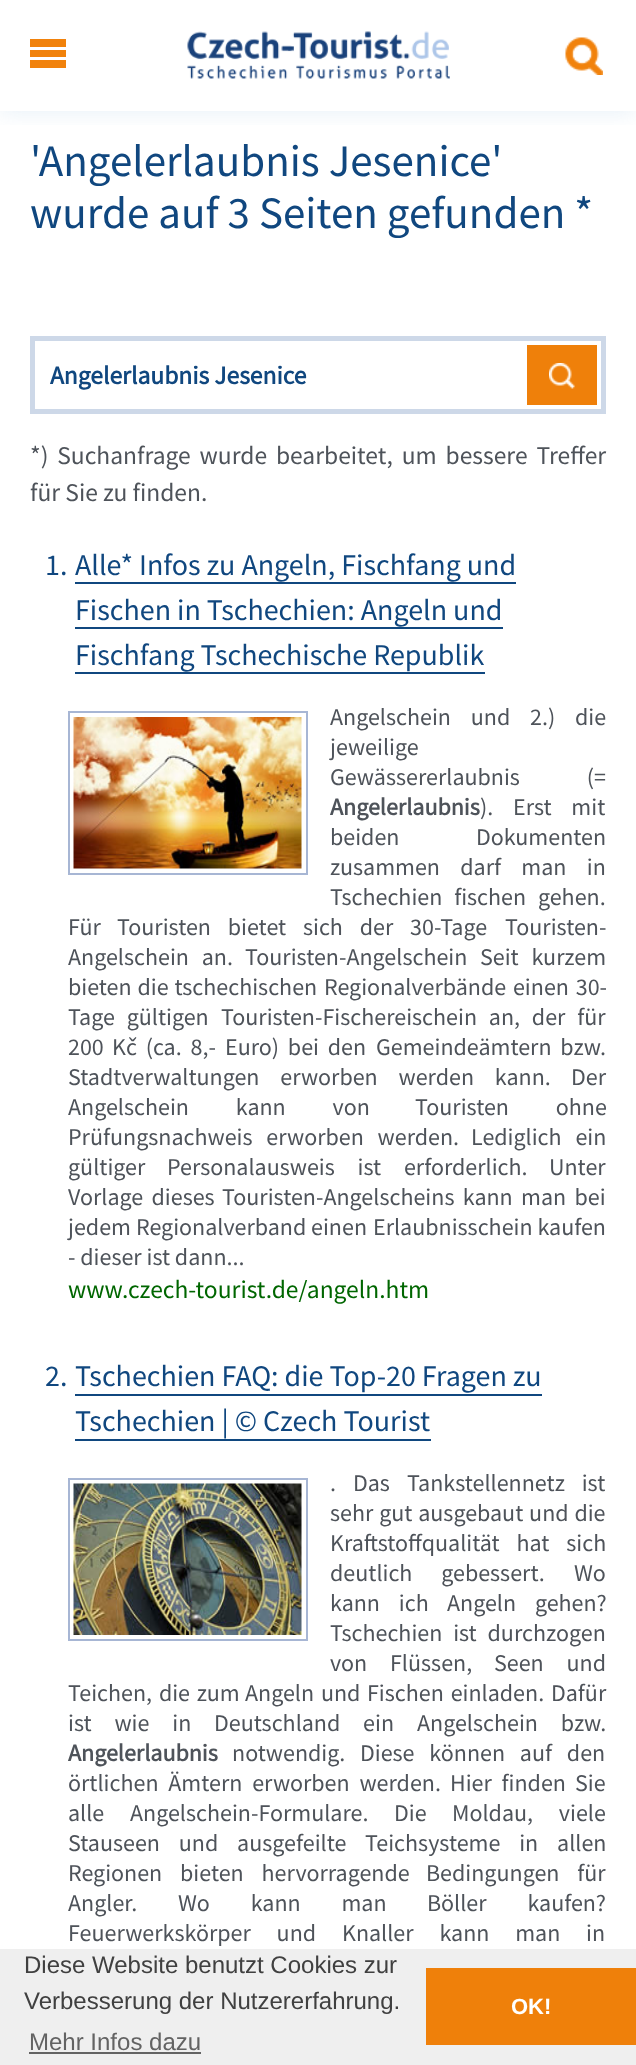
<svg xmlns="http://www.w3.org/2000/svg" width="636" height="2065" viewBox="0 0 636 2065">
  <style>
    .t1 { font: 45px Source Sans Pro; fill: #10477f; }
    .t2 { font: bold 25.5px Source Sans Pro; fill: #10477f; }
    .t3 { font: 25.5px Source Sans Pro; fill: #4e535a; }
    .t4 { font: 30px Source Sans Pro; fill: #10477f; }
    .t5 { font: 24px Source Sans Pro; fill: #4e535a; }
    .t6 { font: bold 24px Source Sans Pro; fill: #4e535a; }
    .t7 { font: 25.5px Source Sans Pro; fill: #060; }
    .t8 { font: 24px Liberation Sans; fill: #404040; }
    .t9 { font: 24px Liberation Sans; fill: #636363; }
    .t10 { font: bold 22px Liberation Sans; fill: #fff; }
  </style>
  <defs>
    <clipPath id="clip1"><rect x="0" y="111" width="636" height="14"/></clipPath>
  </defs>
  <rect width="100%" height="100%" fill="#fff"/>
  <g clip-path="url(#clip1)">
    <rect x="0" y="2" width="636" height="111" fill="#70a7d229" filter="blur(10.5px)"/>
  </g>
  <rect x="30" y="39" width="36" height="8" fill="#f1820c"/>
  <rect x="30" y="50" width="36" height="7" fill="#f1820c"/>
  <rect x="30" y="60" width="36" height="8" fill="#f1820c"/>
  <image x="187" y="31" width="263" height="48" href="images/1.png"/>
  <image x="565" y="37" width="38" height="38" href="images/2.png"/>
  <text x="30" y="176" class="t1">'Angelerlaubnis Jesenice'</text>
  <text x="30" y="228" class="t1">wurde auf 3 Seiten gefunden *</text>
  <rect x="32.5" y="338.5" width="571" height="73" fill="none" stroke="#cdd8e8" stroke-width="5"/>
  <text x="50" y="384" class="t2">Angelerlaubnis Jesenice</text>
  <rect x="527" y="345" width="70" height="60" fill="#ef800a"/>
  <image x="549" y="363" width="26" height="26" href="images/3.png"/>
  <text x="30" y="464" word-spacing="3.75" class="t3">*) Suchanfrage wurde bearbeitet, um bessere Treffer</text>
  <text x="30" y="501" class="t3">für Sie zu finden.</text>
  <text x="45" y="575" class="t4">1.</text>
  <text x="75" y="575" class="t4">Alle* Infos zu Angeln, Fischfang und</text>
  <rect x="75" y="582" width="441" height="2" fill="#10477f"/>
  <text x="75" y="620" class="t4">Fischen in Tschechien: Angeln und</text>
  <rect x="75" y="627" width="428" height="2" fill="#10477f"/>
  <text x="75" y="665" class="t4">Fischfang Tschechische Republik</text>
  <rect x="75" y="672" width="410" height="2" fill="#10477f"/>
  <rect x="69" y="712" width="238" height="162" fill="none" stroke="#a7b6d4" stroke-width="2"/>
  <image x="73" y="717" width="229" height="152" href="images/4.png"/>
  <text x="330" y="725" word-spacing="15" class="t5">Angelschein und 2.) die</text>
  <text x="330" y="755" class="t5">jeweilige</text>
  <text x="330" y="785" word-spacing="62" class="t5">Gewässererlaubnis (=</text>
  <text x="330" y="815" class="t6">Angelerlaubnis</text>
  <text x="480" y="815" class="t5">).</text>
  <text x="513" y="815" word-spacing="15" class="t5">Erst mit</text>
  <text x="330" y="845" class="t5">beiden</text>
  <text x="476" y="845" class="t5">Dokumenten</text>
  <text x="330" y="875" word-spacing="15.5" class="t5">zusammen darf man in</text>
  <text x="330" y="905" word-spacing="7" class="t5">Tschechien fischen gehen.</text>
  <text x="68" y="935" class="t5">Für</text>
  <text x="117" y="935" word-spacing="12" class="t5">Touristen bietet sich der 30-Tage</text>
  <text x="505" y="935" class="t5">Touristen-</text>
  <text x="68" y="965" word-spacing="8" class="t5">Angelschein an.</text>
  <text x="245" y="965" class="t5">Touristen-Angelschein</text>
  <text x="480" y="965" word-spacing="8" class="t5">Seit kurzem</text>
  <text x="68" y="995" word-spacing="1" class="t5">bieten die tschechischen</text>
  <text x="324" y="995" word-spacing="2" class="t5">Regionalverbände einen 30-</text>
  <text x="68" y="1025" word-spacing="7" class="t5">Tage gültigen</text>
  <text x="221" y="1025" word-spacing="7" class="t5">Touristen-Fischereischein an, der für</text>
  <text x="68" y="1055" class="t5">200</text>
  <text x="112" y="1055" word-spacing="4" class="t5">Kč (ca. 8,-</text>
  <text x="225" y="1055" word-spacing="4" class="t5">Euro) bei den</text>
  <text x="376" y="1055" word-spacing="4" class="t5">Gemeindeämtern bzw.</text>
  <text x="68" y="1085" word-spacing="16" class="t5">Stadtverwaltungen erworben werden kann.</text>
  <text x="571" y="1085" class="t5">Der</text>
  <text x="68" y="1115" word-spacing="42" class="t5">Angelschein kann von</text>
  <text x="415" y="1115" word-spacing="42" class="t5">Touristen ohne</text>
  <text x="68" y="1145" word-spacing="9" class="t5">Prüfungsnachweis erworben werden.</text>
  <text x="471" y="1145" word-spacing="9" class="t5">Lediglich ein</text>
  <text x="68" y="1175" class="t5">gültiger</text>
  <text x="167" y="1175" word-spacing="18" class="t5">Personalausweis ist erforderlich.</text>
  <text x="549" y="1175" class="t5">Unter</text>
  <text x="68" y="1205" word-spacing="3.5" class="t5">Vorlage dieses</text>
  <text x="222" y="1205" word-spacing="3.5" class="t5">Touristen-Angelscheins kann man bei</text>
  <text x="68" y="1235" class="t5">jedem</text>
  <text x="136" y="1235" class="t5">Regionalverband einen</text>
  <text x="373" y="1235" class="t5">Erlaubnisschein kaufen</text>
  <text x="68" y="1265" class="t5">- dieser ist dann...</text>
  <text x="68" y="1298" class="t7">www.czech-tourist.de/angeln.htm</text>
  <text x="45" y="1386" class="t4">2.</text>
  <text x="75" y="1386" class="t4">Tschechien FAQ: die Top-20 Fragen zu</text>
  <rect x="75" y="1394" width="467" height="2" fill="#10477f"/>
  <text x="75" y="1431" class="t4">Tschechien | © Czech Tourist</text>
  <rect x="75" y="1439" width="356" height="2" fill="#10477f"/>
  <rect x="69" y="1479" width="238" height="161" fill="none" stroke="#a7b6d4" stroke-width="2"/>
  <image x="73" y="1483" width="229" height="152" href="images/5.png"/>
  <text x="330" y="1491" class="t5">.</text>
  <text x="353" y="1491" class="t5">Das</text>
  <text x="407" y="1491" word-spacing="12" class="t5">Tankstellennetz ist</text>
  <text x="330" y="1521" word-spacing="1" class="t5">sehr gut ausgebaut und die</text>
  <text x="330" y="1551" word-spacing="12" class="t5">Kraftstoffqualität hat sich</text>
  <text x="330" y="1581" word-spacing="24" class="t5">deutlich gebessert.</text>
  <text x="574" y="1581" class="t5">Wo</text>
  <text x="330" y="1611" word-spacing="14" class="t5">kann ich</text>
  <text x="447" y="1611" word-spacing="14" class="t5">Angeln gehen?</text>
  <text x="330" y="1641" word-spacing="6" class="t5">Tschechien ist durchzogen</text>
  <text x="330" y="1671" class="t5">von</text>
  <text x="390" y="1671" class="t5">Flüssen,</text>
  <text x="494" y="1671" word-spacing="18" class="t5">Seen und</text>
  <text x="68" y="1701" word-spacing="2" class="t5">Teichen, die zum</text>
  <text x="245" y="1701" word-spacing="2" class="t5">Angeln und</text>
  <text x="367" y="1701" word-spacing="2" class="t5">Fischen einladen.</text>
  <text x="551" y="1701" class="t5">Dafür</text>
  <text x="68" y="1731" word-spacing="18" class="t5">ist wie in</text>
  <text x="214" y="1731" word-spacing="18" class="t5">Deutschland ein</text>
  <text x="417" y="1731" word-spacing="18" class="t5">Angelschein bzw.</text>
  <text x="68" y="1761" class="t6">Angelerlaubnis</text>
  <text x="232" y="1761" class="t5">notwendig.</text>
  <text x="360" y="1761" word-spacing="10" class="t5">Diese können auf den</text>
  <text x="68" y="1791" word-spacing="5" class="t5">örtlichen Ämtern erworben werden.</text>
  <text x="450" y="1791" word-spacing="5" class="t5">Hier finden</text>
  <text x="575" y="1791" class="t5">Sie</text>
  <text x="68" y="1821" class="t5">alle</text>
  <text x="130" y="1821" class="t5">Angelschein-Formulare.</text>
  <text x="394" y="1821" class="t5">Die</text>
  <text x="452" y="1821" word-spacing="21" class="t5">Moldau, viele</text>
  <text x="68" y="1851" word-spacing="14" class="t5">Stauseen und ausgefeilte</text>
  <text x="365" y="1851" word-spacing="14" class="t5">Teichsysteme in allen</text>
  <text x="68" y="1881" word-spacing="13" class="t5">Regionen bieten hervorragende</text>
  <text x="426" y="1881" word-spacing="13" class="t5">Bedingungen für</text>
  <text x="68" y="1911" class="t5">Angler.</text>
  <text x="178" y="1911" word-spacing="36" class="t5">Wo kann man</text>
  <text x="427" y="1911" word-spacing="36" class="t5">Böller kaufen?</text>
  <text x="68" y="1941" word-spacing="21" class="t5">Feuerwerkskörper und</text>
  <text x="342" y="1941" word-spacing="21" class="t5">Knaller kann man in</text>
  <rect x="0" y="1949" width="636" height="116" fill="#efefef"/>
  <text x="24" y="1973" class="t8">Diese Website benutzt Cookies zur</text>
  <text x="24" y="2009" class="t8">Verbesserung der Nutzererfahrung.</text>
  <text x="29" y="2050" class="t9">Mehr Infos dazu</text>
  <rect x="29" y="2052" width="172" height="2" fill="#636363"/>
  <rect x="426" y="1968" width="210" height="77" fill="#ef800a"/>
  <text x="511" y="2014" class="t10">OK!</text>
</svg>
